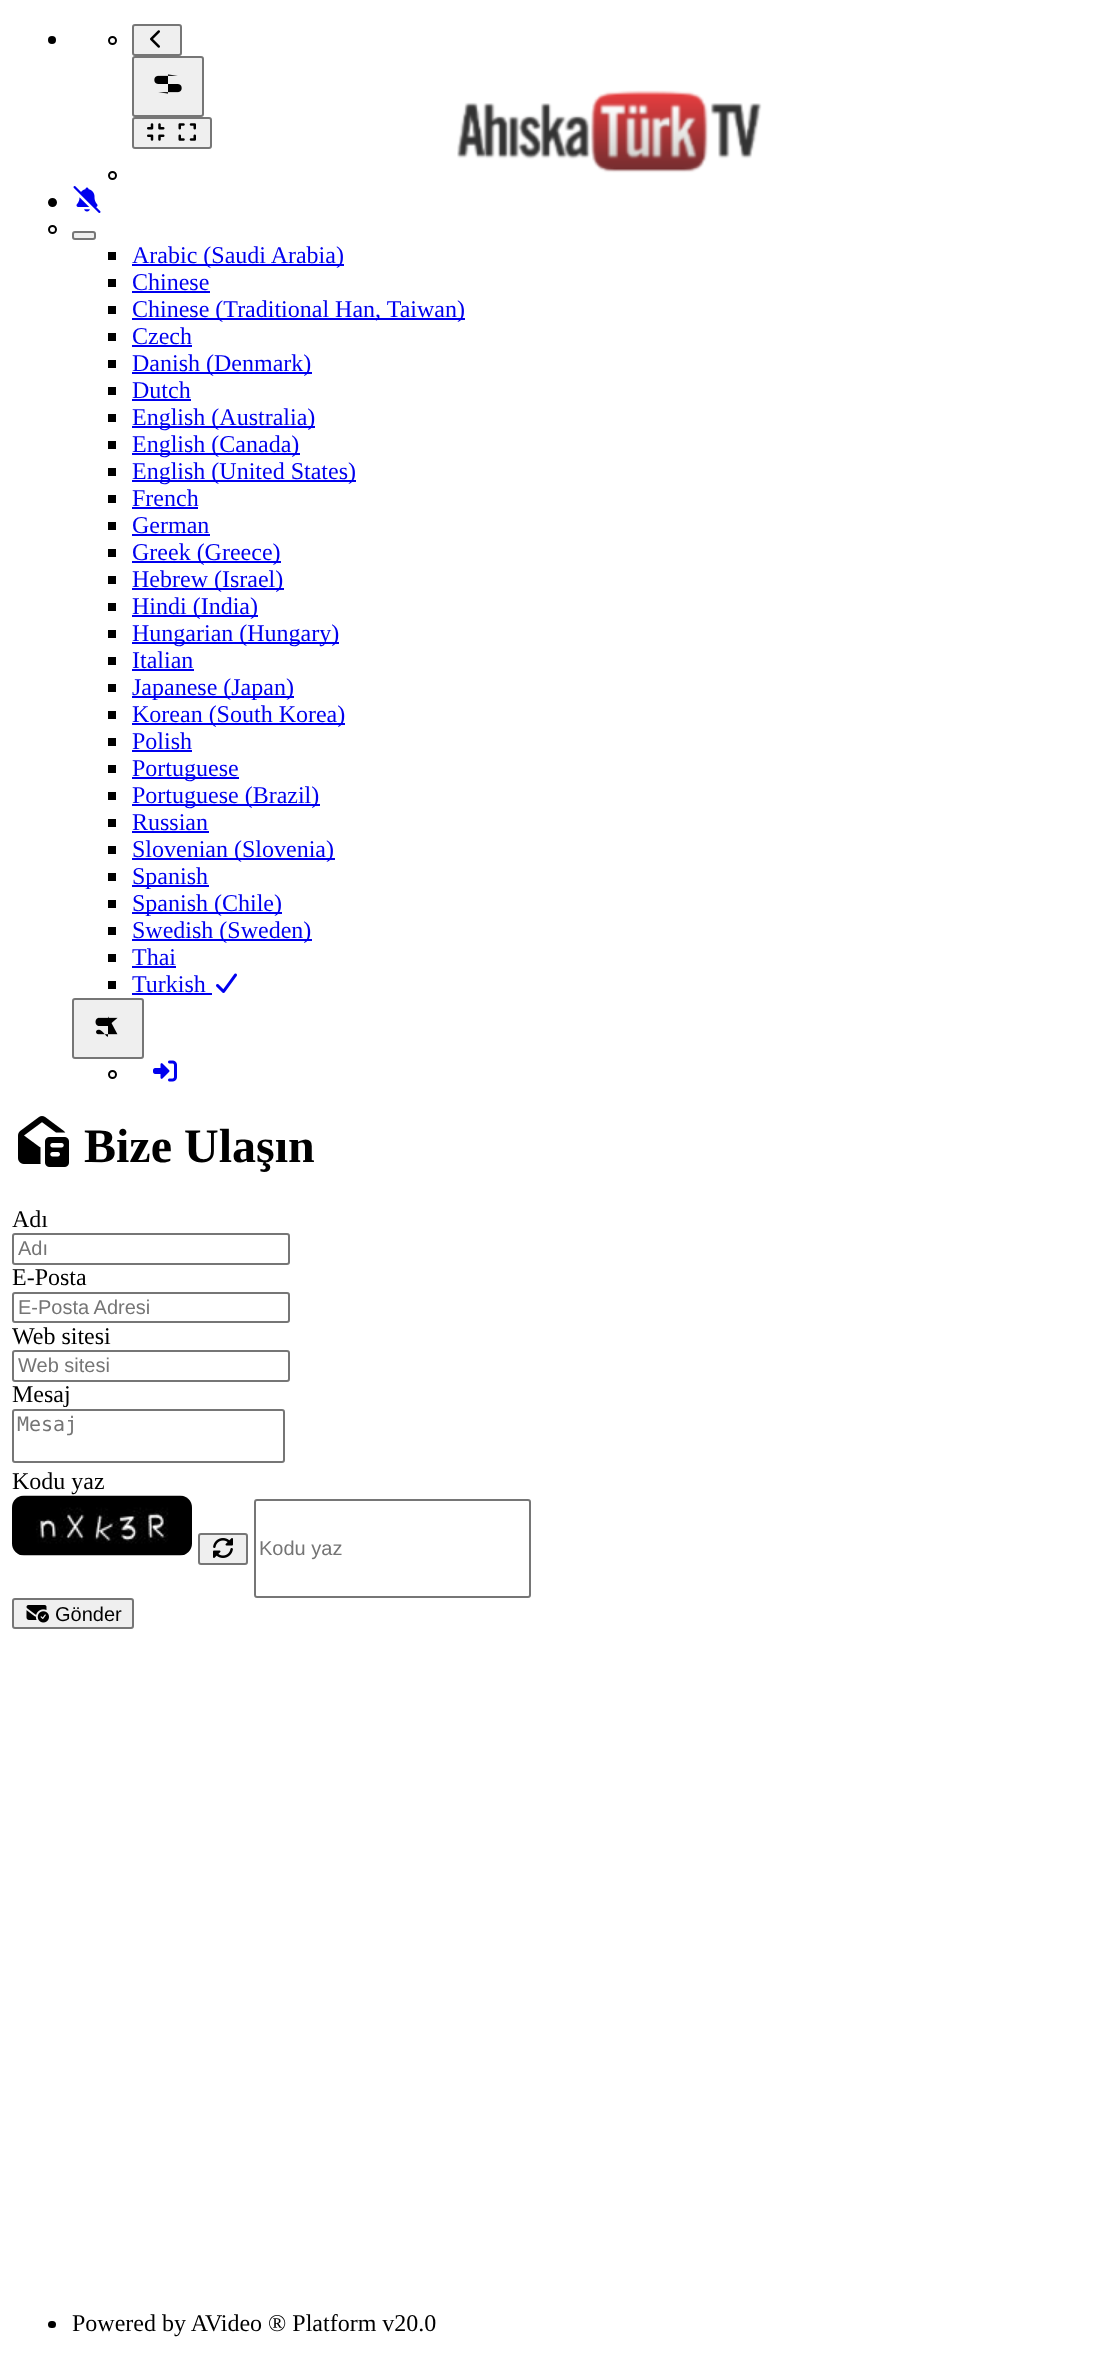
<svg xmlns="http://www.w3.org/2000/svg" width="1097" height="2360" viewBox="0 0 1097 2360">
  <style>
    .t1 { font: 24px Liberation Serif; fill: #00e; }
    .t2 { font: bold 48px Liberation Serif; fill: #000; }
    .t3 { font: 24px Liberation Serif; fill: #000; }
    .t4 { font: 20px Liberation Sans; fill: #757575; }
    .t5 { font: 20px DejaVu Sans Mono; fill: #757575; }
    .t6 { font: 20px Liberation Sans; fill: #000; }
  </style>
  <rect width="100%" height="100%" fill="#fff"/>
  <circle cx="52" cy="40" r="4" fill="#000"/>
  <circle cx="112.5" cy="40.5" r="3.5" fill="none" stroke="#000" stroke-width="2"/>
  <rect x="133" y="25" width="48" height="30" rx="2" fill="#efefef" stroke="#767676" stroke-width="2"/>
  <image x="150" y="30" width="10" height="18" href="images/1.png"/>
  <rect x="133" y="57" width="70" height="59" rx="2" fill="#efefef" stroke="#767676" stroke-width="2"/>
  <image x="154" y="74" width="28" height="20" href="images/2.png"/>
  <rect x="133" y="118" width="78" height="30" rx="2" fill="#efefef" stroke="#767676" stroke-width="2"/>
  <image x="147" y="123" width="18" height="18" href="images/3.png"/>
  <image x="178" y="123" width="18" height="18" href="images/4.png"/>
  <image x="457" y="90" width="305" height="83" href="images/5.png"/>
  <circle cx="112.5" cy="175.5" r="3.5" fill="none" stroke="#000" stroke-width="2"/>
  <circle cx="52.5" cy="202.5" r="3.5" fill="#000" stroke="#000" stroke-width="2"/>
  <image x="73" y="186" width="28" height="27" href="images/6.png"/>
  <circle cx="52.5" cy="229.5" r="3.5" fill="none" stroke="#000" stroke-width="2"/>
  <rect x="73" y="232" width="22" height="7" rx="2" fill="#efefef" stroke="#767676" stroke-width="2"/>
  <rect x="108" y="252" width="8" height="8" fill="#000"/>
  <rect x="132" y="264" width="212" height="2" fill="#00e"/>
  <text x="132" y="263" class="t1">Arabic (Saudi Arabia)</text>
  <rect x="108" y="279" width="8" height="8" fill="#000"/>
  <text x="132" y="290" class="t1">Chinese</text>
  <rect x="132" y="291" width="78" height="2" fill="#00e"/>
  <rect x="108" y="306" width="8" height="8" fill="#000"/>
  <rect x="132" y="318" width="333" height="2" fill="#00e"/>
  <text x="132" y="317" class="t1">Chinese (Traditional Han, Taiwan)</text>
  <rect x="108" y="333" width="8" height="8" fill="#000"/>
  <text x="132" y="344" class="t1">Czech</text>
  <rect x="132" y="345" width="60" height="2" fill="#00e"/>
  <rect x="108" y="360" width="8" height="8" fill="#000"/>
  <rect x="132" y="372" width="180" height="2" fill="#00e"/>
  <text x="132" y="371" class="t1">Danish (Denmark)</text>
  <rect x="108" y="387" width="8" height="8" fill="#000"/>
  <text x="132" y="398" class="t1">Dutch</text>
  <rect x="132" y="399" width="59" height="2" fill="#00e"/>
  <rect x="108" y="414" width="8" height="8" fill="#000"/>
  <rect x="132" y="426" width="183" height="2" fill="#00e"/>
  <text x="132" y="425" class="t1">English (Australia)</text>
  <rect x="108" y="441" width="8" height="8" fill="#000"/>
  <rect x="132" y="453" width="168" height="2" fill="#00e"/>
  <text x="132" y="452" class="t1">English (Canada)</text>
  <rect x="108" y="468" width="8" height="8" fill="#000"/>
  <rect x="132" y="480" width="224" height="2" fill="#00e"/>
  <text x="132" y="479" class="t1">English (United States)</text>
  <rect x="108" y="495" width="8" height="8" fill="#000"/>
  <text x="132" y="506" class="t1">French</text>
  <rect x="132" y="507" width="66" height="2" fill="#00e"/>
  <rect x="108" y="522" width="8" height="8" fill="#000"/>
  <text x="132" y="533" class="t1">German</text>
  <rect x="132" y="534" width="78" height="2" fill="#00e"/>
  <rect x="108" y="549" width="8" height="8" fill="#000"/>
  <rect x="132" y="561" width="149" height="2" fill="#00e"/>
  <text x="132" y="560" class="t1">Greek (Greece)</text>
  <rect x="108" y="576" width="8" height="8" fill="#000"/>
  <rect x="132" y="588" width="152" height="2" fill="#00e"/>
  <text x="132" y="587" class="t1">Hebrew (Israel)</text>
  <rect x="108" y="603" width="8" height="8" fill="#000"/>
  <rect x="132" y="615" width="126" height="2" fill="#00e"/>
  <text x="132" y="614" class="t1">Hindi (India)</text>
  <rect x="108" y="630" width="8" height="8" fill="#000"/>
  <rect x="132" y="642" width="207" height="2" fill="#00e"/>
  <text x="132" y="641" class="t1">Hungarian (Hungary)</text>
  <rect x="108" y="657" width="8" height="8" fill="#000"/>
  <text x="132" y="668" class="t1">Italian</text>
  <rect x="132" y="669" width="62" height="2" fill="#00e"/>
  <rect x="108" y="684" width="8" height="8" fill="#000"/>
  <rect x="132" y="696" width="162" height="2" fill="#00e"/>
  <text x="132" y="695" class="t1">Japanese (Japan)</text>
  <rect x="108" y="711" width="8" height="8" fill="#000"/>
  <rect x="132" y="723" width="213" height="2" fill="#00e"/>
  <text x="132" y="722" class="t1">Korean (South Korea)</text>
  <rect x="108" y="738" width="8" height="8" fill="#000"/>
  <text x="132" y="749" class="t1">Polish</text>
  <rect x="132" y="750" width="60" height="2" fill="#00e"/>
  <rect x="108" y="765" width="8" height="8" fill="#000"/>
  <rect x="132" y="777" width="107" height="2" fill="#00e"/>
  <text x="132" y="776" class="t1">Portuguese</text>
  <rect x="108" y="792" width="8" height="8" fill="#000"/>
  <rect x="132" y="804" width="188" height="2" fill="#00e"/>
  <text x="132" y="803" class="t1">Portuguese (Brazil)</text>
  <rect x="108" y="819" width="8" height="8" fill="#000"/>
  <text x="132" y="830" class="t1">Russian</text>
  <rect x="132" y="831" width="77" height="2" fill="#00e"/>
  <rect x="108" y="846" width="8" height="8" fill="#000"/>
  <rect x="132" y="858" width="203" height="2" fill="#00e"/>
  <text x="132" y="857" class="t1">Slovenian (Slovenia)</text>
  <rect x="108" y="873" width="8" height="8" fill="#000"/>
  <rect x="132" y="885" width="77" height="2" fill="#00e"/>
  <text x="132" y="884" class="t1">Spanish</text>
  <rect x="108" y="900" width="8" height="8" fill="#000"/>
  <rect x="132" y="912" width="150" height="2" fill="#00e"/>
  <text x="132" y="911" class="t1">Spanish (Chile)</text>
  <rect x="108" y="927" width="8" height="8" fill="#000"/>
  <rect x="132" y="939" width="180" height="2" fill="#00e"/>
  <text x="132" y="938" class="t1">Swedish (Sweden)</text>
  <rect x="108" y="954" width="8" height="8" fill="#000"/>
  <text x="132" y="965" class="t1">Thai</text>
  <rect x="132" y="966" width="44" height="2" fill="#00e"/>
  <rect x="108" y="981" width="8" height="8" fill="#000"/>
  <text x="132" y="992" class="t1">Turkish</text>
  <rect x="132" y="993" width="80" height="2" fill="#00e"/>
  <image x="216" y="973" width="21" height="20" href="images/7.png"/>
  <rect x="73" y="999" width="70" height="59" rx="2" fill="#efefef" stroke="#767676" stroke-width="2"/>
  <image x="95" y="1016" width="23" height="21" href="images/8.png"/>
  <circle cx="112.5" cy="1074.5" r="3.5" fill="none" stroke="#000" stroke-width="2"/>
  <image x="153" y="1060" width="24" height="22" href="images/9.png"/>
  <image x="18" y="1116" width="51" height="51" href="images/10.png"/>
  <text x="84" y="1162" class="t2">Bize Ulaşın</text>
  <text x="12" y="1227" class="t3">Adı</text>
  <rect x="13" y="1234" width="276" height="30" rx="2" fill="none" stroke="#767676" stroke-width="2"/>
  <text x="18" y="1255" class="t4">Adı</text>
  <text x="12" y="1285" class="t3">E-Posta</text>
  <rect x="13" y="1293" width="276" height="29" rx="2" fill="none" stroke="#767676" stroke-width="2"/>
  <text x="18" y="1314" class="t4">E-Posta Adresi</text>
  <text x="12" y="1344" class="t3">Web sitesi</text>
  <rect x="13" y="1351" width="276" height="30" rx="2" fill="none" stroke="#767676" stroke-width="2"/>
  <text x="18" y="1372" class="t4">Web sitesi</text>
  <text x="12" y="1402" class="t3">Mesaj</text>
  <rect x="13" y="1410" width="271" height="52" rx="2" fill="none" stroke="#767676" stroke-width="2"/>
  <text x="17" y="1431" class="t5">Mesaj</text>
  <text x="12" y="1489" class="t3">Kodu yaz</text>
  <image x="12" y="1495" width="180" height="61" href="images/11.png"/>
  <rect x="199" y="1534" width="48" height="30" rx="2" fill="#efefef" stroke="#767676" stroke-width="2"/>
  <image x="213" y="1538" width="20" height="20" href="images/12.png"/>
  <rect x="255" y="1500" width="275" height="97" rx="2" fill="none" stroke="#767676" stroke-width="2"/>
  <text x="259" y="1555" class="t4">Kodu yaz</text>
  <rect x="13" y="1599" width="120" height="29" rx="2" fill="#efefef" stroke="#767676" stroke-width="2"/>
  <image x="26" y="1605" width="23" height="18" href="images/13.png"/>
  <text x="55" y="1621" class="t6">Gönder</text>
  <rect x="48" y="2321" width="8" height="7" rx="3.5" fill="#000"/>
  <text x="72" y="2331" class="t3">Powered by AVideo ® Platform v20.0</text>
</svg>
